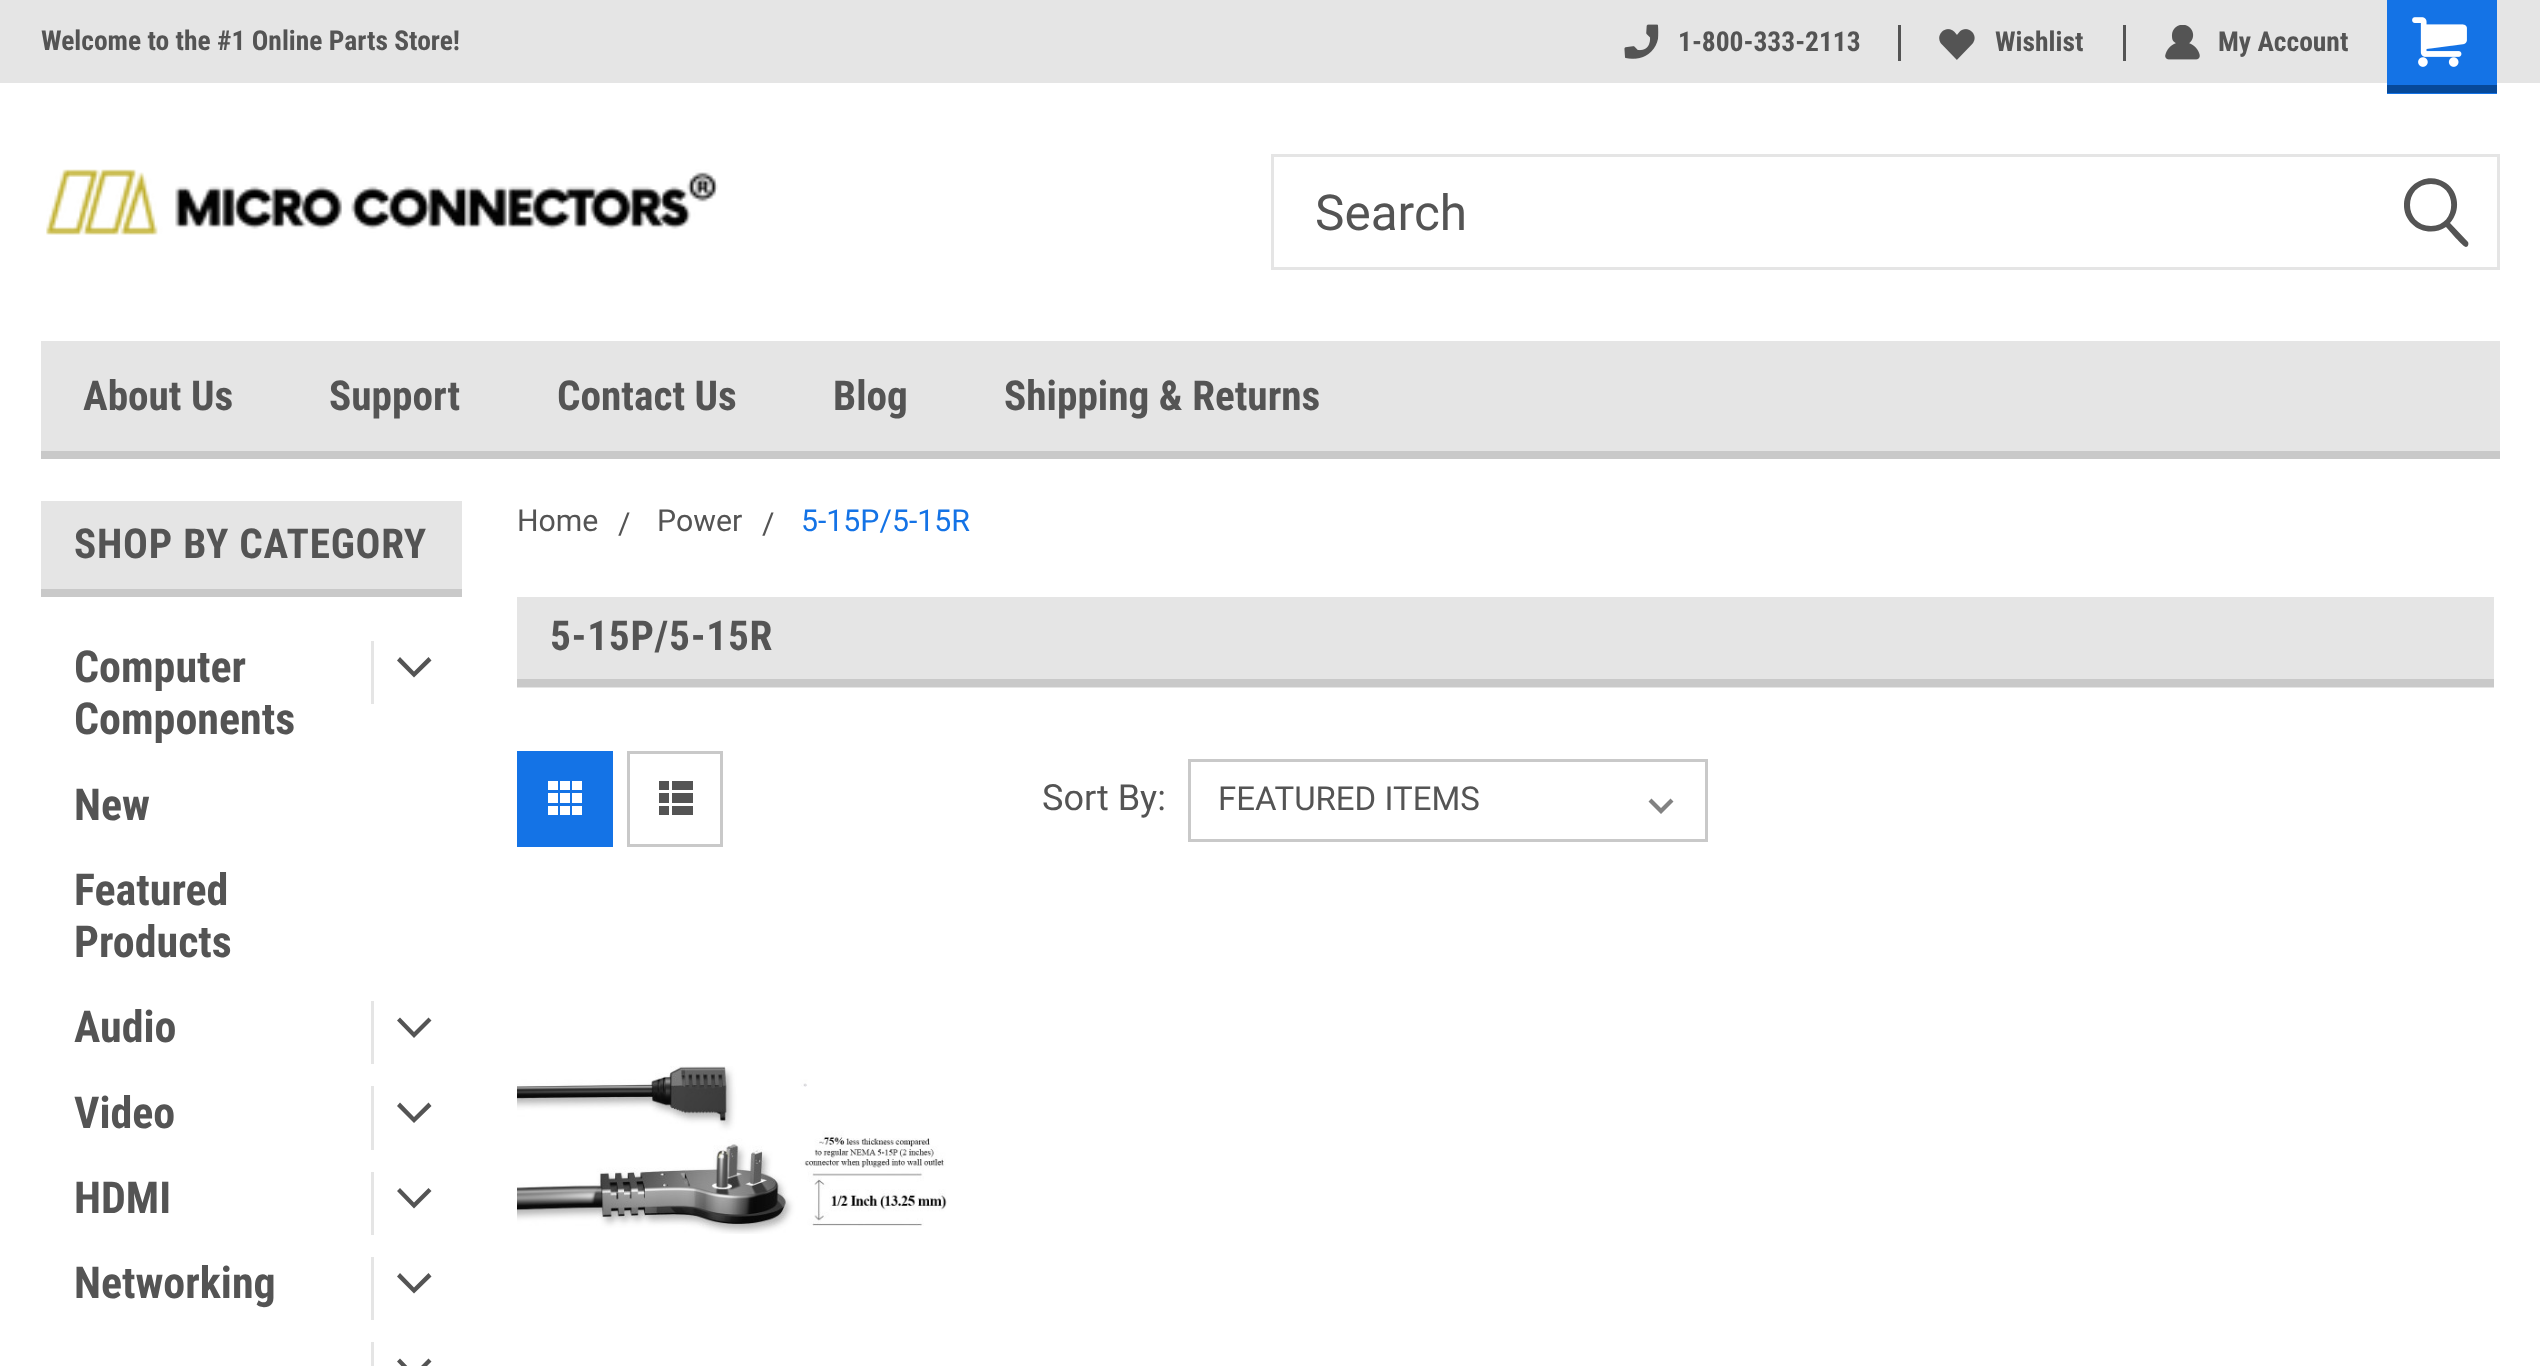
<svg xmlns="http://www.w3.org/2000/svg" width="2540" height="1366" viewBox="0 0 2540 1366">
  <style>
    .t1 { font: bold 27.5px Roboto Condensed; fill: #545454; }
    .t2 { font: 49.5px Roboto; fill: #545454; }
    .t3 { font: bold 41.25px Roboto Condensed; fill: #545454; }
    .t4 { font: bold 41.25px Roboto Condensed; letter-spacing: 0.75px; fill: #545454; }
    .t5 { font: bold 44px Roboto Condensed; fill: #545454; }
    .t6 { font: 30.25px Roboto; fill: #545454; }
    .t7 { font: 30.25px Roboto; fill: #1473e6; }
    .t8 { font: 36px Roboto; fill: #545454; }
    .t9 { font: 33px Roboto; fill: #545454; }
  </style>
  <rect width="100%" height="100%" fill="#fff"/>
  <rect x="0" y="0" width="2540" height="83" fill="#e5e5e5"/>
  <text x="41" y="50" class="t1">Welcome to the #1 Online Parts Store!</text>
  <rect x="1898" y="25" width="3" height="36" fill="#545454"/>
  <image x="1624" y="24" width="35" height="35" href="images/1.png"/>
  <text x="1678" y="51" class="t1">1-800-333-2113</text>
  <rect x="2123" y="25" width="3" height="36" fill="#545454"/>
  <image x="1939" y="29" width="36" height="31" href="images/2.png"/>
  <text x="1995" y="51" class="t1">Wishlist</text>
  <image x="2165" y="25" width="35" height="35" href="images/3.png"/>
  <text x="2218" y="51" class="t1">My Account</text>
  <rect x="2387" y="0" width="110" height="94" fill="#1473e6"/>
  <rect x="2387" y="85" width="110" height="8" fill="#074999"/>
  <image x="2412" y="17" width="55" height="50" href="images/4.png"/>
  <image x="46" y="169" width="672" height="66" href="images/5.png"/>
  <rect x="1272.5" y="155.5" width="1226" height="113" fill="none" stroke="#e5e5e5" stroke-width="3"/>
  <text x="1315" y="230" class="t2">Search</text>
  <path d="M2466 247C2463 247 2449 230 2446 227C2428 239 2403 226 2404 204C2405 183 2429 171 2446 183C2459 192 2461 211 2450 223L2468 242C2469 244 2468 247 2466 247ZM2431 184C2403 184 2403 226 2431 226C2458 226 2458 184 2431 184Z" fill="#545454"/>
  <rect x="41" y="341" width="2459" height="110" fill="#e5e5e5"/>
  <rect x="41" y="451" width="2459" height="8" fill="#c9c9c9"/>
  <text x="83" y="410" class="t3">About Us</text>
  <text x="329" y="410" class="t3">Support</text>
  <text x="557" y="410" class="t3">Contact Us</text>
  <text x="833" y="410" class="t3">Blog</text>
  <text x="1004" y="410" class="t3">Shipping &amp; Returns</text>
  <rect x="41" y="501" width="421" height="88" fill="#e5e5e5"/>
  <rect x="41" y="589" width="421" height="8" fill="#c9c9c9"/>
  <text x="74" y="558" class="t4">SHOP BY CATEGORY</text>
  <text x="74" y="682" class="t5">Computer</text>
  <text x="74" y="734" class="t5">Components</text>
  <rect x="371" y="641" width="3" height="63" fill="#e5e5e5"/>
  <path d="M431.5 660.5L414 677.5L397 660.5L400 657L414 671.5L428.5 657Z" fill="#545454"/>
  <text x="74" y="820" class="t5">New</text>
  <text x="74" y="905" class="t5">Featured</text>
  <text x="74" y="957" class="t5">Products</text>
  <text x="74" y="1042" class="t5">Audio</text>
  <rect x="371" y="1001" width="3" height="63" fill="#e5e5e5"/>
  <path d="M431.5 1020.5L414 1038L397 1020.5L400 1017.5L414 1032L428.5 1017.5Z" fill="#545454"/>
  <text x="74" y="1128" class="t5">Video</text>
  <rect x="371" y="1086" width="3" height="64" fill="#e5e5e5"/>
  <path d="M431.5 1106L414 1123L397 1106L400 1102.5L414 1117L428.5 1102.5Z" fill="#545454"/>
  <text x="74" y="1213" class="t5">HDMI</text>
  <rect x="371" y="1172" width="3" height="63" fill="#e5e5e5"/>
  <path d="M431.5 1191L414 1208.5L397 1191L400 1188L414 1202.5L428.5 1188Z" fill="#545454"/>
  <text x="74" y="1298" class="t5">Networking</text>
  <rect x="371" y="1257" width="3" height="63" fill="#e5e5e5"/>
  <path d="M431.5 1276.5L414 1293.5L397 1276.5L400 1273L414 1287.5L428.5 1273Z" fill="#545454"/>
  <rect x="371" y="1342" width="3" height="24" fill="#e5e5e5"/>
  <path d="M431.5 1361.5L414 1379L397 1361.5L400 1358.5L414 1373L428.5 1358.5Z" fill="#545454"/>
  <text x="517" y="531" class="t6">Home</text>
  <text x="618" y="534" class="t6">/</text>
  <text x="657" y="531" class="t6">Power</text>
  <text x="762" y="534" class="t6">/</text>
  <text x="801" y="531" class="t7">5-15P/5-15R</text>
  <rect x="517" y="597" width="1977" height="91" fill="#e5e5e5"/>
  <rect x="517" y="679" width="1977" height="8" fill="#c9c9c9"/>
  <text x="550" y="650" class="t4">5-15P/5-15R</text>
  <rect x="517" y="751" width="96" height="96" fill="#1473e6"/>
  <image x="548" y="781" width="34" height="34" href="images/6.png"/>
  <rect x="628.5" y="752.5" width="93" height="93" fill="none" stroke="#c9c9c9" stroke-width="3"/>
  <rect x="659" y="781" width="10" height="9" fill="#545454"/>
  <rect x="672" y="781" width="21" height="9" fill="#545454"/>
  <rect x="659" y="793" width="10" height="10" fill="#545454"/>
  <rect x="672" y="793" width="21" height="10" fill="#545454"/>
  <rect x="659" y="806" width="10" height="9" fill="#545454"/>
  <rect x="672" y="806" width="21" height="9" fill="#545454"/>
  <text x="1042" y="810" class="t8">Sort By:</text>
  <path d="M1670.5 798.5L1661 808L1651.5 798.5L1648.5 801.5L1661 814L1673.5 801.5Z" fill="#828282"/>
  <rect x="1189.5" y="760.5" width="517" height="80" fill="none" stroke="#c9c9c9" stroke-width="3"/>
  <text x="1218" y="810" class="t9">FEATURED ITEMS</text>
  <image x="517" y="1066" width="430" height="168" href="images/7.png"/>
</svg>
